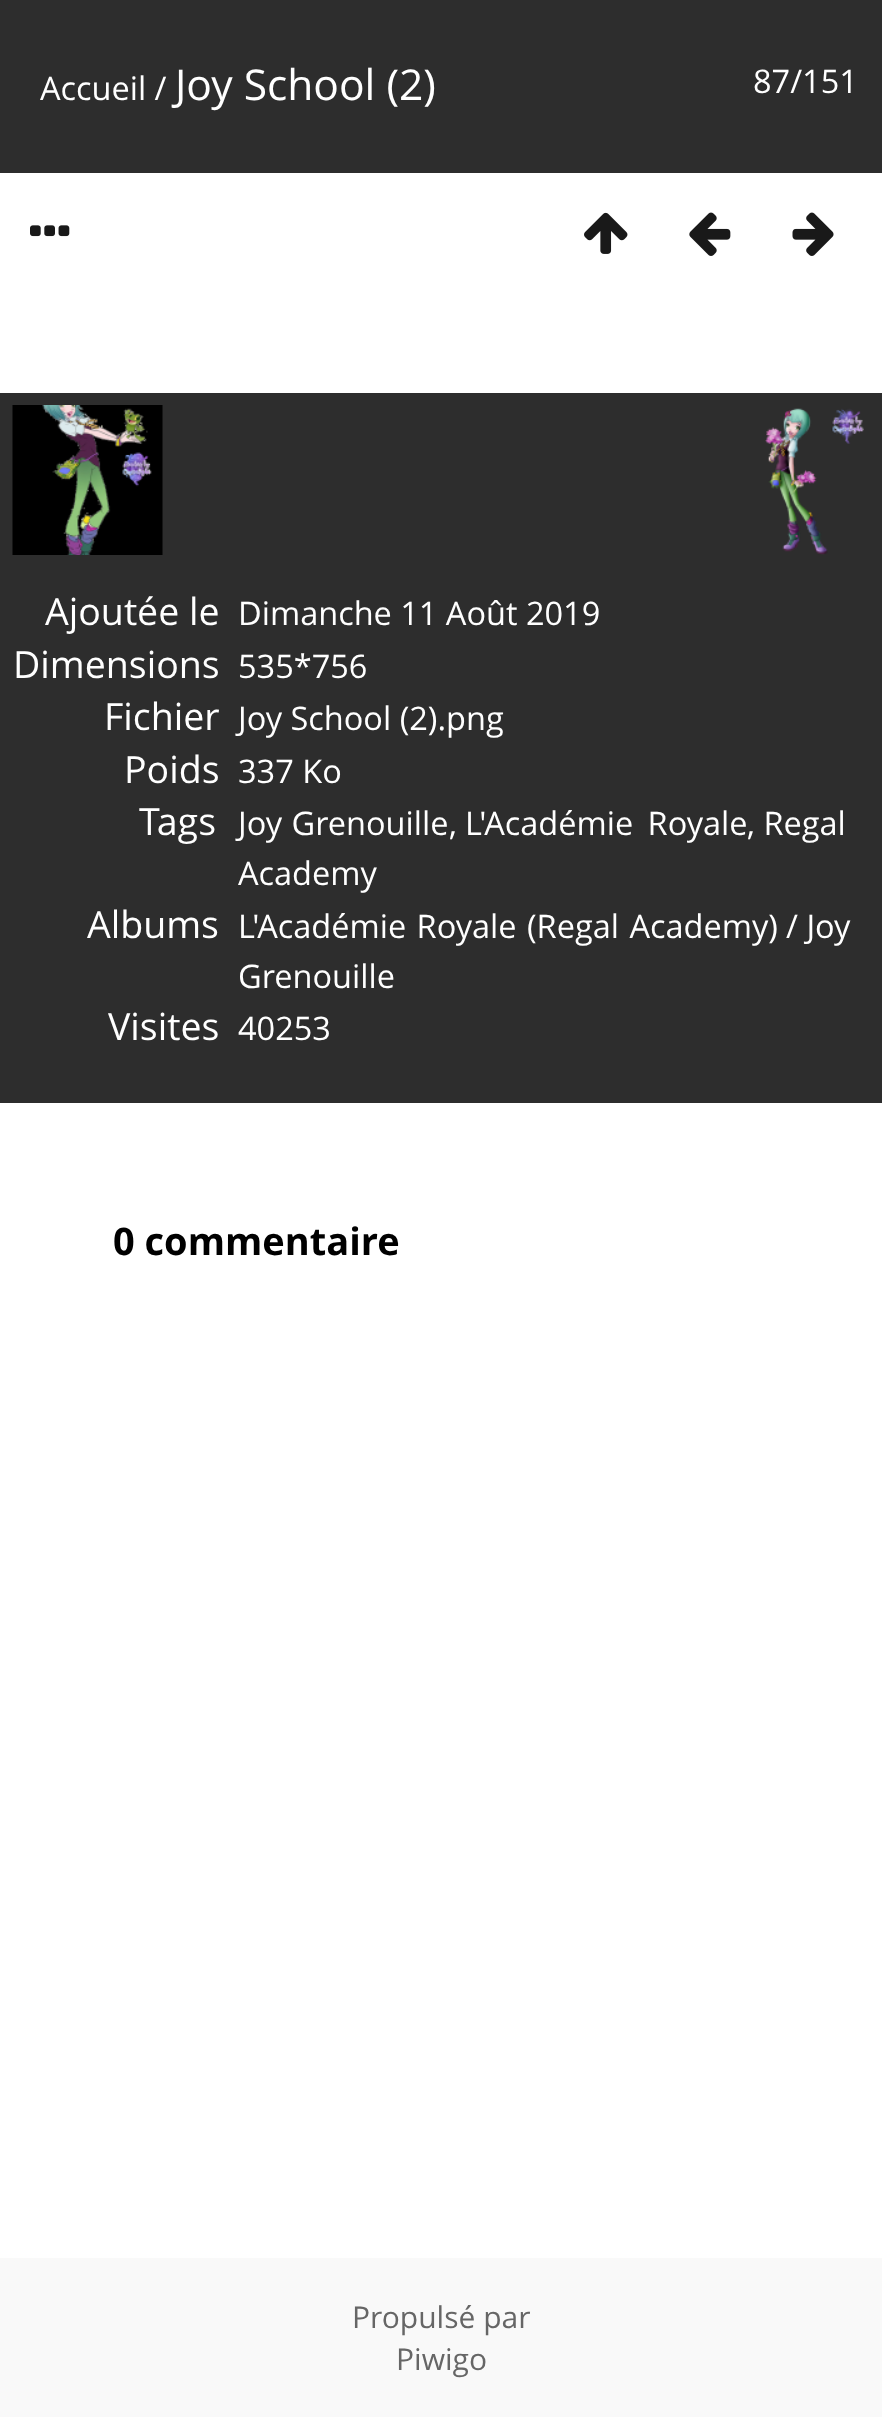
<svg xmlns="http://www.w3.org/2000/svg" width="882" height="2417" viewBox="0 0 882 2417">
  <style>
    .t1 { font: 32.5px Open Sans; fill: #fff; }
    .t2 { font: 42.5px Open Sans; fill: #fff; }
    .t3 { font: 37.5px Open Sans; fill: #fff; }
    .t4 { font: bold 38px Open Sans; fill: #000; }
    .t5 { font: 30px Open Sans; fill: #666; }
  </style>
  <rect width="100%" height="100%" fill="#fff"/>
  <rect x="0" y="0" width="882" height="173" fill="#2d2d2d"/>
  <text x="40" y="100" class="t1">Accueil /</text>
  <text x="175" y="100" class="t2">Joy School (2)</text>
  <text x="753" y="93" class="t1">87/151</text>
  <image x="30" y="225" width="40" height="12" href="images/1.png"/>
  <image x="584" y="212" width="44" height="42" href="images/2.png"/>
  <image x="689" y="212" width="42" height="44" href="images/3.png"/>
  <image x="792" y="212" width="42" height="44" href="images/4.png"/>
  <rect x="0" y="393" width="882" height="710" fill="#2d2d2d"/>
  <image x="12" y="405" width="151" height="150" href="images/5.png"/>
  <image x="765" y="408" width="99" height="147" href="images/6.png"/>
  <text x="45" y="625" class="t3">Ajoutée le</text>
  <text x="238" y="625" class="t1">Dimanche 11 Août 2019</text>
  <text x="13" y="678" class="t3">Dimensions</text>
  <text x="238" y="678" class="t1">535*756</text>
  <text x="104" y="730" class="t3">Fichier</text>
  <text x="238" y="730" class="t1">Joy School (2).png</text>
  <text x="124" y="783" class="t3">Poids</text>
  <text x="238" y="783" class="t1">337 Ko</text>
  <text x="139" y="835" class="t3">Tags</text>
  <text x="238" y="835" word-spacing="1" class="t1">Joy Grenouille</text>
  <text x="449" y="835" class="t1">,</text>
  <text x="465" y="835" word-spacing="6" class="t1">L'Académie Royale</text>
  <text x="747" y="835" class="t1">, Regal</text>
  <text x="238" y="885" class="t1">Academy</text>
  <text x="87" y="938" class="t3">Albums</text>
  <text x="238" y="938" word-spacing="2" class="t1">L'Académie Royale (Regal Academy)</text>
  <text x="786" y="938" class="t1">/ Joy</text>
  <text x="238" y="988" class="t1">Grenouille</text>
  <text x="108" y="1040" class="t3">Visites</text>
  <text x="238" y="1040" class="t1">40253</text>
  <text x="113" y="1255" class="t4">0 commentaire</text>
  <rect x="0" y="2258" width="882" height="159" fill="#f9f9f9"/>
  <text x="352" y="2328" class="t5">Propulsé par</text>
  <text x="396" y="2370" class="t5">Piwigo</text>
</svg>
